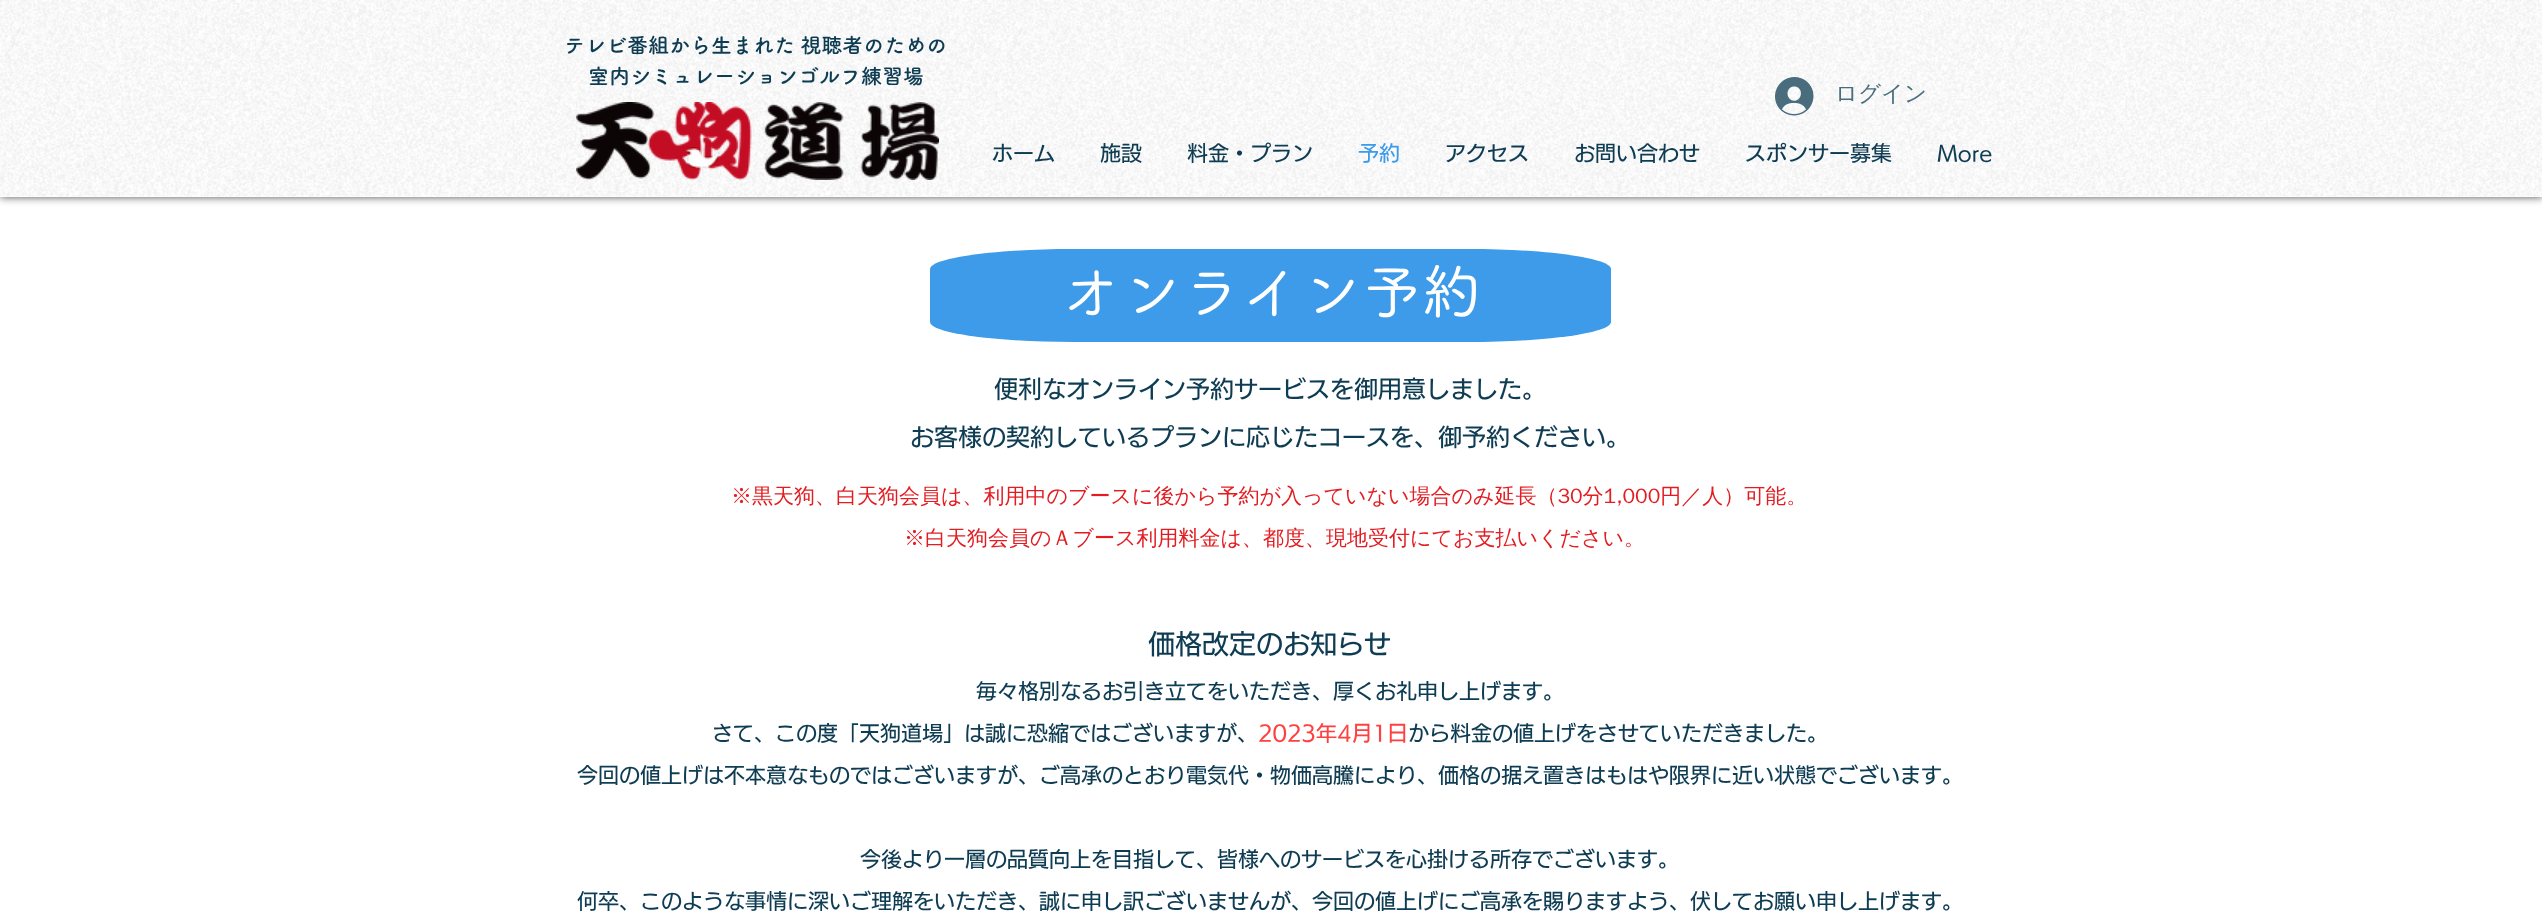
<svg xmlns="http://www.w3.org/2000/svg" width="2542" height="915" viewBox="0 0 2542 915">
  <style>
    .t1 { font: bold 21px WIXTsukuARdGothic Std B; fill: #0e3c53; }
    .t2 { font: 500 22.5px WenQuanYi Zen Hei; fill: #4a6d7e; }
    .t3 { font: 500 21px 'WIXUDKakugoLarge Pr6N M'; fill: #0e3c53; }
    .t4 { font: 500 21px 'WIXUDKakugoLarge Pr6N M'; fill: #3d9be9; }
    .t5 { font: 500 60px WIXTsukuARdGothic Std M; fill: #fff; }
    .t6 { font: 500 24px 'WIXUDKakugoLarge Pr6N M'; fill: #0e3c53; }
    .t7 { font: 500 21px WenQuanYi Zen Hei; fill: #e21c21; }
    .t8 { font: 500 27px 'WIXUDKakugoLarge Pr6N M'; fill: #0e3c53; }
    .t9 { font: 500 21px 'WIXUDKakugoLarge Pr6N M'; fill: #ff4040; }
  </style>
  <rect width="100%" height="100%" fill="#fff"/>
  <rect x="0" y="0" width="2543" height="197" fill="#000000b3" filter="blur(4px)"/>
  <rect x="0" y="0" width="2542" height="197" fill="#fff"/>
  <image x="0" y="0" width="2542" height="197" href="images/1.png"/>
  <text x="564" y="53" class="t1">テレビ番組から生まれた 視聴者のための</text>
  <text x="588" y="84" class="t1">室内シミュレーションゴルフ練習場</text>
  <image x="1775" y="77" width="39" height="39" href="images/2.png"/>
  <text x="1835" y="101" class="t2">ログイン</text>
  <image x="576" y="102" width="363" height="78" href="images/3.png"/>
  <text x="992" y="161" class="t3">ホーム</text>
  <text x="1100" y="161" class="t3">施設</text>
  <text x="1187" y="161" class="t3">料金・プラン</text>
  <text x="1358" y="161" class="t4">予約</text>
  <text x="1445" y="161" class="t3">アクセス</text>
  <text x="1574" y="161" class="t3">お問い合わせ</text>
  <text x="1745" y="161" class="t3">スポンサー募集</text>
  <text x="1937" y="161" class="t3">More</text>
  <path d="M1468 342H1073C995 342 930 333 930 322V269C930 258 995 249 1073 249H1468C1546 249 1611 258 1611 269V322C1611 333 1546 342 1468 342Z" fill="#3d9be9"/>
  <text x="1062" y="314" class="t5">オンライン予約</text>
  <text x="994" y="398" class="t6">便利なオンライン予約サービスを御用意しました。</text>
  <text x="910" y="446" class="t6">お客様の契約しているプランに応じたコースを、御予約ください。</text>
  <text x="731" y="503" class="t7">※黒天狗、白天狗会員は、利用中のブースに後から予約が入っていない場合のみ延長（30分1,000円／人）可能。</text>
  <text x="904" y="545" class="t7">※白天狗会員のＡブース利用料金は、都度、現地受付にてお支払いください。</text>
  <text x="1148" y="654" class="t8">価格改定のお知らせ</text>
  <text x="976" y="699" class="t3">毎々格別なるお引き立てをいただき、厚くお礼申し上げます。</text>
  <text x="712" y="741" class="t3">さて、この度「天狗道場」は誠に恐縮ではございますが、</text>
  <text x="1258" y="741" class="t9">2023年4月1日</text>
  <text x="1408" y="741" class="t3">から料金の値上げをさせていただきました。</text>
  <text x="577" y="783" class="t3">今回の値上げは不本意なものではございますが、ご高承のとおり電気代・物価高騰により、価格の据え置きはもはや限界に近い状態でございます。</text>
  <text x="860" y="867" class="t3">今後より一層の品質向上を目指して、皆様へのサービスを心掛ける所存でございます。</text>
  <text x="577" y="909" class="t3">何卒、このような事情に深いご理解をいただき、誠に申し訳ございませんが、今回の値上げにご高承を賜りますよう、伏してお願い申し上げます。</text>
</svg>
